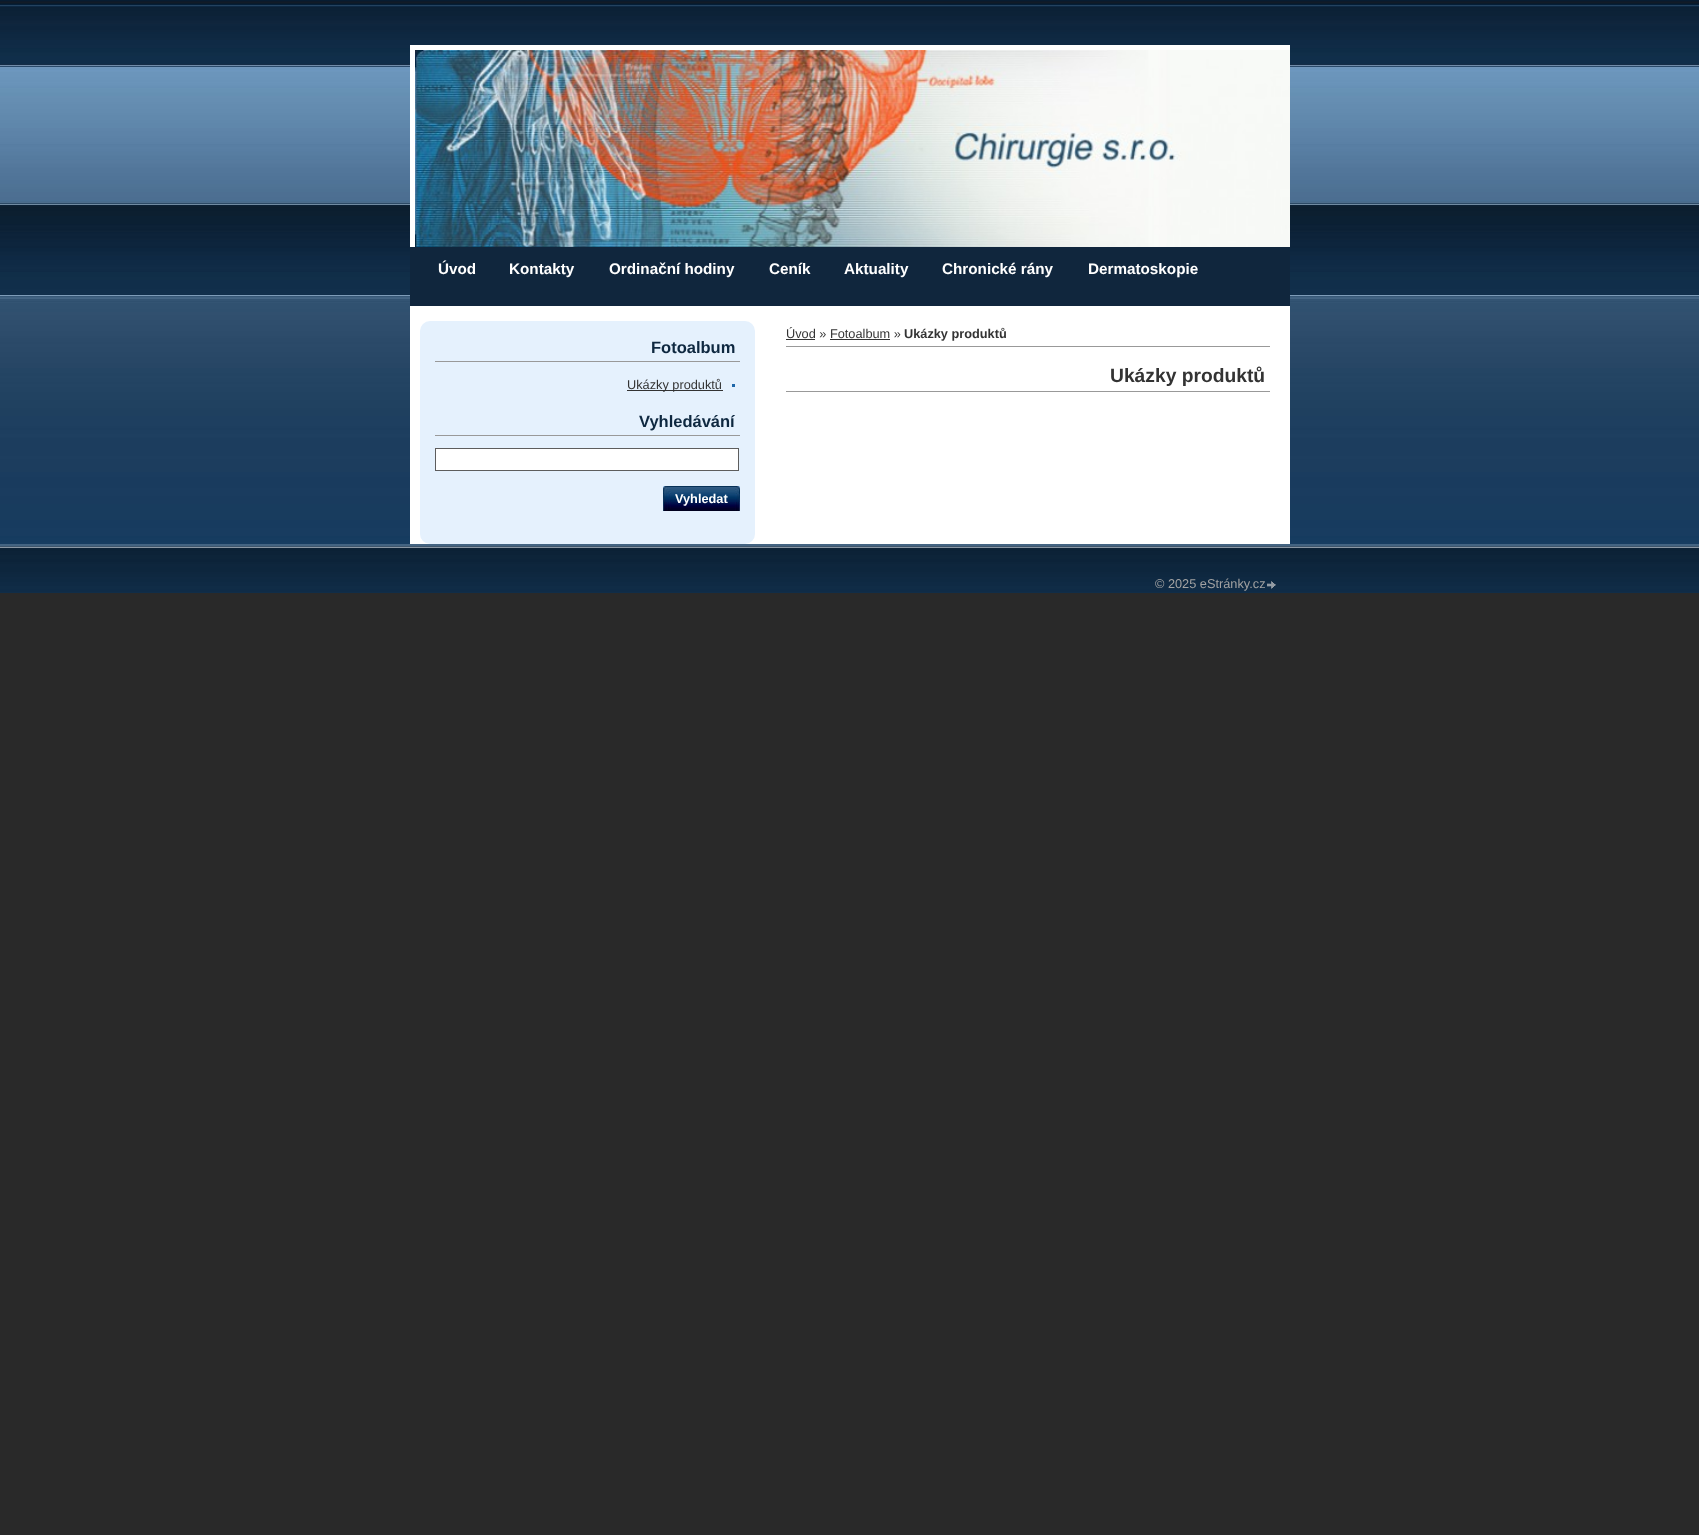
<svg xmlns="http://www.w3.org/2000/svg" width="1699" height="1535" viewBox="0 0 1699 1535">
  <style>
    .t1 { font: bold 15.25px Liberation Sans; fill: #fff; }
    .t2 { font: bold 16.5px Liberation Sans; fill: #0e2840; }
    .t3 { font: 12.75px Liberation Sans; fill: #333; }
    .t4 { font: bold 12.75px Liberation Sans; fill: #fff; }
    .t5 { font: bold 12.75px Liberation Sans; fill: #333; }
    .t6 { font: bold 19.25px Liberation Sans; fill: #333; }
    .t7 { font: 12.75px Liberation Sans; fill: #a2a2a2; }
  </style>
  <rect width="100%" height="100%" fill="#292929"/>
  <image x="0" y="0" width="1699" height="544" href="images/1.png"/>
  <rect x="410" y="45" width="880" height="202" fill="#fff"/>
  <image x="415" y="50" width="875" height="197" href="images/2.png"/>
  <rect x="410" y="306" width="880" height="238" fill="#fff"/>
  <rect x="410" y="247" width="880" height="59" fill="#10263d"/>
  <text x="438" y="274" class="t1">Úvod</text>
  <text x="509" y="274" class="t1">Kontakty</text>
  <text x="609" y="274" class="t1">Ordinační hodiny</text>
  <text x="769" y="274" class="t1">Ceník</text>
  <text x="844" y="274" class="t1">Aktuality</text>
  <text x="942" y="274" class="t1">Chronické rány</text>
  <text x="1088" y="274" class="t1">Dermatoskopie</text>
  <rect x="420" y="321" width="335" height="223" rx="10" fill="#e5f1fd"/>
  <rect x="435" y="361" width="305" height="1" fill="#999"/>
  <text x="651" y="353" class="t2">Fotoalbum</text>
  <rect x="732" y="384" width="3" height="3" fill="#1e66a8"/>
  <rect x="627" y="390" width="96" height="1" fill="#333"/>
  <text x="627" y="389" class="t3">Ukázky produktů</text>
  <rect x="435" y="435" width="305" height="1" fill="#999"/>
  <text x="639" y="427" class="t2">Vyhledávání</text>
  <rect x="435.5" y="448.5" width="303" height="22" fill="#fff" stroke="#5d5d5d"/>
  <image x="663" y="486" width="77" height="25" href="images/3.png"/>
  <text x="675" y="503" class="t4">Vyhledat</text>
  <rect x="786" y="346" width="484" height="1" fill="#999"/>
  <text x="786" y="338" class="t3">Úvod » Fotoalbum »</text>
  <rect x="786" y="339" width="29" height="1" fill="#333"/>
  <text x="904" y="338" class="t5">Ukázky produktů</text>
  <rect x="830" y="339" width="60" height="1" fill="#333"/>
  <rect x="786" y="391" width="484" height="1" fill="#999"/>
  <text x="1110" y="382" class="t6">Ukázky produktů</text>
  <image x="0" y="544" width="1699" height="49" href="images/4.png"/>
  <text x="1155" y="588" class="t7">© 2025 eStránky.cz</text>
  <image x="1267" y="581" width="9" height="8" href="images/5.png"/>
</svg>
